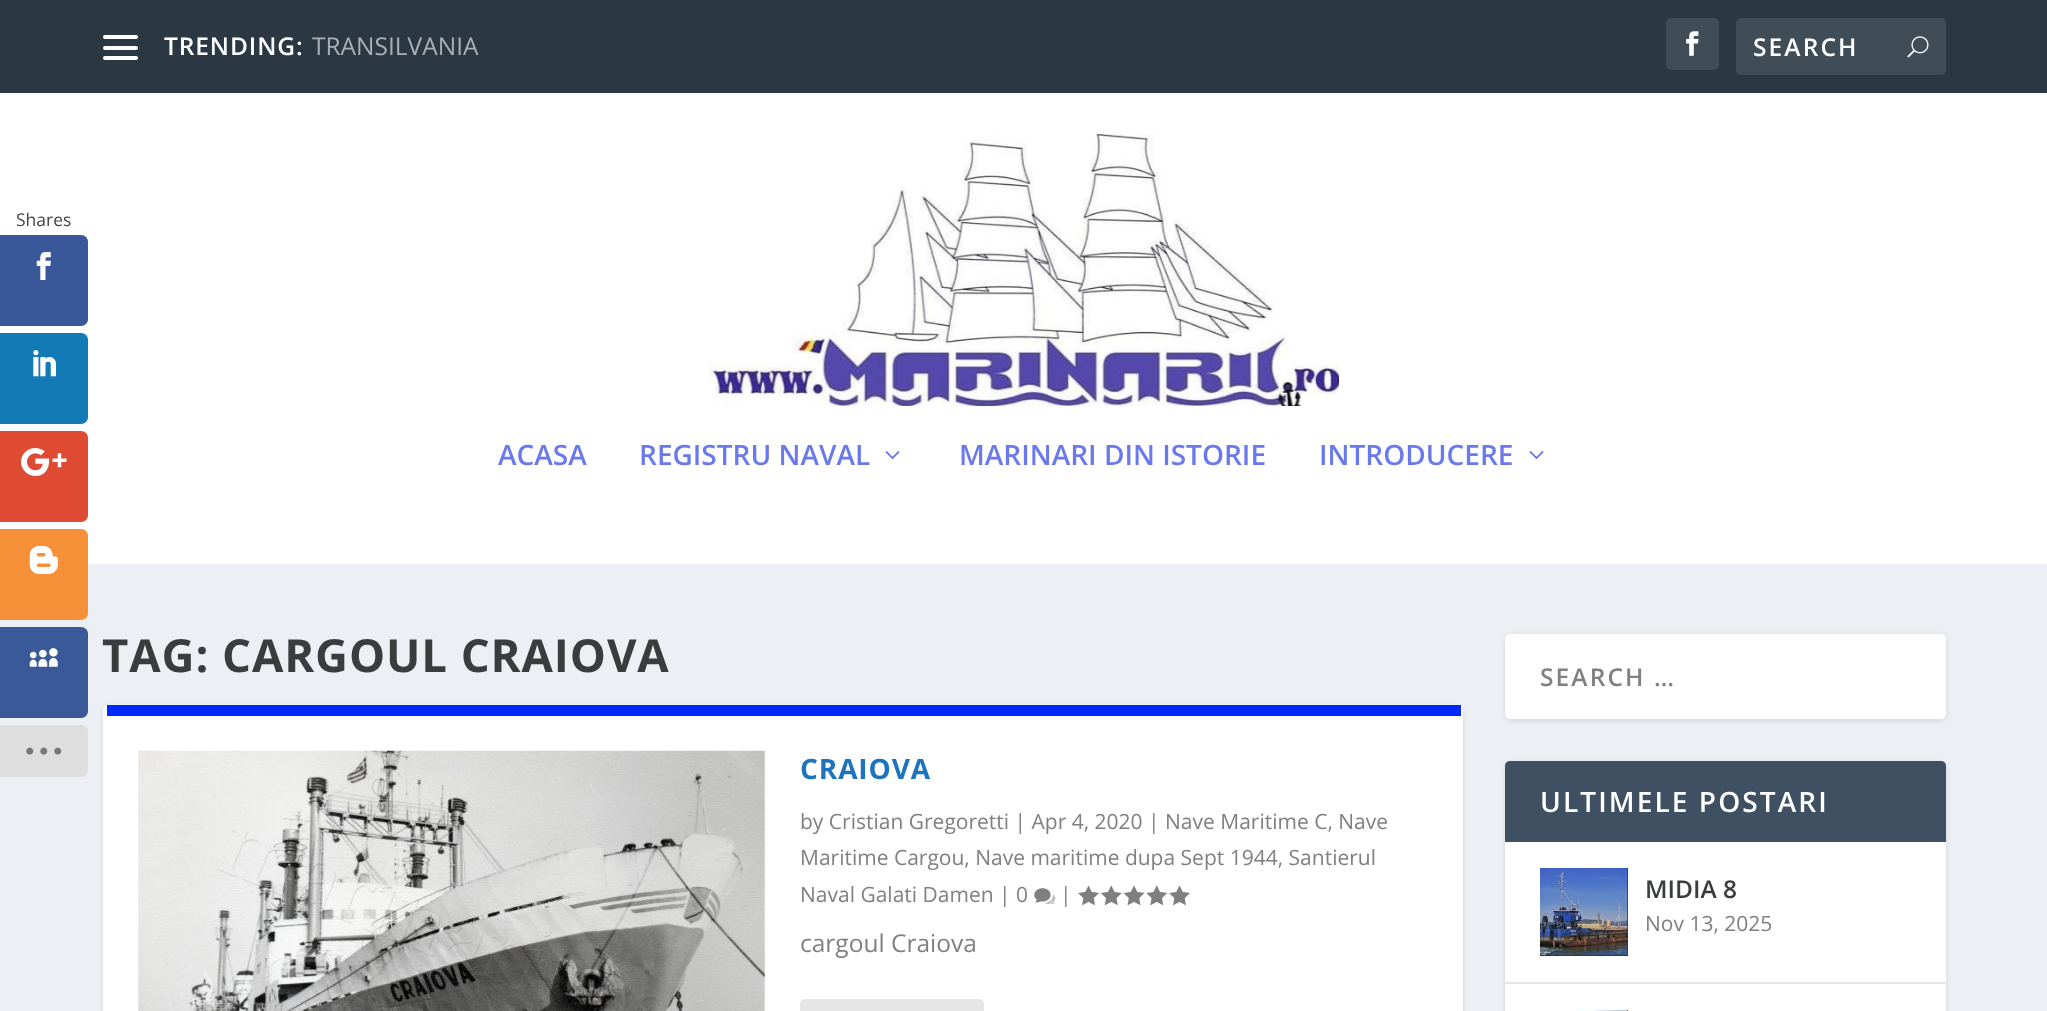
<svg xmlns="http://www.w3.org/2000/svg" width="2047" height="1011" viewBox="0 0 2047 1011">
  <style>
    .t1 { font: 17.5px Open Sans; fill: #444; }
    .t2 { font: 600 24.5px Open Sans; letter-spacing: 0.9px; fill: #fff; }
    .t3 { font: 24.5px Open Sans; fill: #aaafb4; }
    .t4 { font: 600 24.5px Open Sans; letter-spacing: 2.1px; fill: #fff; }
    .t5 { font: 600 28px Open Sans; fill: #6a79eb; }
    .t6 { font: bold 45.5px Open Sans; letter-spacing: 0.9px; fill: #3b3c3d; }
    .t7 { font: bold 28px Open Sans; letter-spacing: 0.9px; fill: #1e73be; }
    .t8 { font: 21px Open Sans; fill: #808080; }
    .t9 { font: 24.5px Open Sans; fill: #808080; }
    .t10 { font: 600 24.5px Open Sans; letter-spacing: 2.1px; fill: #808080; }
    .t11 { font: 600 28px Open Sans; letter-spacing: 2.1px; fill: #fff; }
    .t12 { font: 600 24.5px Open Sans; fill: #3b3c3d; }
  </style>
  <defs>
    <clipPath id="clip1"><rect x="1754" y="30" width="175" height="33"/></clipPath>
  </defs>
  <rect width="100%" height="100%" fill="#ecf0f5"/>
  <rect x="0" y="93" width="2047" height="471" fill="#fff"/>
  <text x="16" y="226" class="t1">Shares</text>
  <path d="M0 235H81C85 235 88 238 88 242V319C88 323 85 326 81 326H0Z" fill="#3a579a"/>
  <image x="36" y="252" width="15" height="28" href="images/1.png"/>
  <path d="M0 333H81C85 333 88 336 88 340V417C88 421 85 424 81 424H0Z" fill="#127bb6"/>
  <image x="33" y="350" width="23" height="27" href="images/2.png"/>
  <path d="M0 431H81C85 431 88 434 88 438V515C88 519 85 522 81 522H0Z" fill="#df4a32"/>
  <image x="21" y="448" width="46" height="28" href="images/3.png"/>
  <path d="M0 529H81C85 529 88 532 88 536V613C88 617 85 620 81 620H0Z" fill="#f59038"/>
  <image x="29" y="546" width="29" height="28" href="images/4.png"/>
  <path d="M0 627H81C85 627 88 630 88 634V711C88 715 85 718 81 718H0Z" fill="#3a5998"/>
  <image x="29" y="648" width="29" height="19" href="images/5.png"/>
  <path d="M0 725H81C85 725 88 728 88 732V770C88 774 85 777 81 777H0Z" fill="#dedede"/>
  <image x="26" y="747" width="36" height="8" href="images/6.png"/>
  <rect x="0" y="0" width="2047" height="93" fill="#2b3843"/>
  <rect x="103" y="35" width="35" height="4" rx="2" fill="#fff"/>
  <rect x="103" y="46" width="35" height="4" rx="2" fill="#fff"/>
  <rect x="103" y="56" width="35" height="4" rx="2" fill="#fff"/>
  <text x="164" y="55" class="t2">TRENDING:</text>
  <text x="312" y="55" class="t3">TRANSILVANIA</text>
  <rect x="1666" y="18" width="53" height="52" rx="5" fill="#404c56"/>
  <image x="1686" y="31" width="13" height="25" href="images/7.png"/>
  <rect x="1736" y="18" width="210" height="57" rx="5" fill="#404c56"/>
  <g clip-path="url(#clip1)">
    <text x="1753" y="56" class="t4">SEARCH</text>
  </g>
  <image x="1907" y="36" width="22" height="22" href="images/8.png"/>
  <image x="709" y="132" width="630" height="274" href="images/9.png"/>
  <text x="498" y="465" class="t5">ACASA</text>
  <text x="639" y="465" class="t5">REGISTRU NAVAL</text>
  <image x="885" y="451" width="15" height="8" href="images/10.png"/>
  <text x="959" y="465" class="t5">MARINARI DIN ISTORIE</text>
  <text x="1319" y="465" class="t5">INTRODUCERE</text>
  <image x="1529" y="451" width="15" height="8" href="images/10.png"/>
  <text x="102" y="672" class="t6">TAG: CARGOUL CRAIOVA</text>
  <rect x="103" y="707" width="1360" height="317" rx="5" fill="#0000001a" filter="blur(2.5px)"/>
  <rect x="103" y="705" width="1360" height="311" rx="5" fill="#fff"/>
  <rect x="107" y="705" width="1354" height="11" fill="#0029ff"/>
  <image x="138" y="750" width="627" height="261" href="images/11.png"/>
  <text x="800" y="779" class="t7">CRAIOVA</text>
  <text x="800" y="829" class="t8">by Cristian Gregoretti | Apr 4, 2020 | Nave Maritime C, Nave</text>
  <text x="800" y="865" class="t8">Maritime Cargou, Nave maritime dupa Sept 1944, Santierul</text>
  <text x="800" y="902" class="t8">Naval Galati Damen | 0</text>
  <image x="1034" y="888" width="22" height="16" href="images/12.png"/>
  <text x="1060" y="902" class="t8">|</text>
  <image x="1078" y="885" width="21" height="21" href="images/13.png"/>
  <image x="1101" y="885" width="21" height="21" href="images/14.png"/>
  <image x="1123" y="885" width="22" height="21" href="images/15.png"/>
  <image x="1146" y="885" width="21" height="21" href="images/16.png"/>
  <image x="1169" y="885" width="21" height="21" href="images/13.png"/>
  <text x="800" y="952" class="t9">cargoul Craiova</text>
  <rect x="800" y="999" width="184" height="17" rx="5" fill="#e6e6e6"/>
  <rect x="1505" y="635" width="441" height="86" rx="5" fill="#0000001a" filter="blur(2.5px)"/>
  <rect x="1505" y="634" width="441" height="85" rx="5" fill="#fff"/>
  <text x="1540" y="686" class="t10">SEARCH …</text>
  <rect x="1505" y="763" width="441" height="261" rx="5" fill="#0000001a" filter="blur(2.5px)"/>
  <rect x="1505" y="761" width="441" height="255" rx="5" fill="#fff"/>
  <path d="M1510 761H1941C1944 761 1946 763 1946 766V842H1505V766C1505 763 1507 761 1510 761Z" fill="#3e5062"/>
  <text x="1540" y="812" class="t11">ULTIMELE POSTARI</text>
  <rect x="1505" y="982" width="441" height="2" fill="#e6e6e6"/>
  <rect x="1540" y="868" width="88" height="88" fill="#0029ff"/>
  <image x="1540" y="868" width="88" height="88" href="images/17.png"/>
  <text x="1645" y="898" class="t12">MIDIA 8</text>
  <text x="1645" y="931" class="t8">Nov 13, 2025</text>
  <rect x="1627" y="1010" width="1" height="1" fill="#0029ff"/>
  <image x="1540" y="1009" width="88" height="2" href="images/18.png"/>
</svg>
